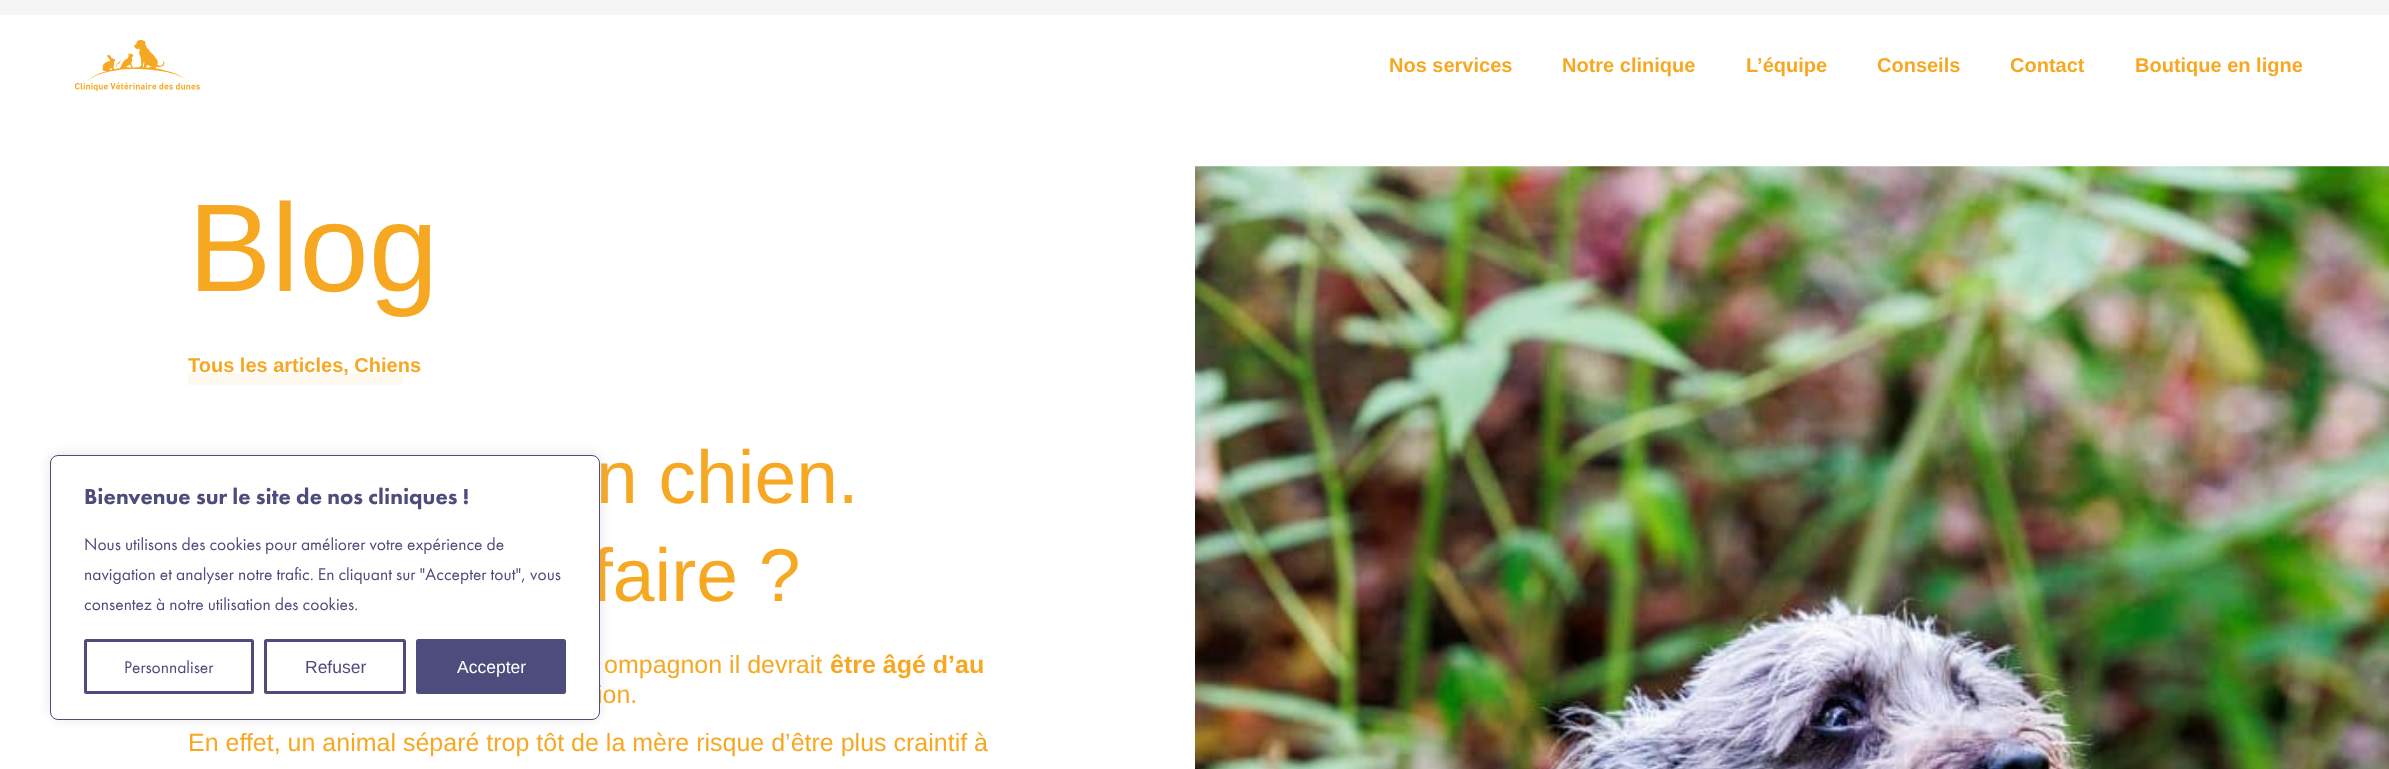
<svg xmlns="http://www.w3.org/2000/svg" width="2389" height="769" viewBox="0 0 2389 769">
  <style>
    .t1 { font: bold 20px Liberation Sans; fill: #f7a823; }
    .t2 { font: 125px Liberation Sans; fill: #f7a823; }
    .t3 { font: 75px Liberation Sans; fill: #f7a823; }
    .t4 { font: 25px Liberation Sans; fill: #f7a823; }
    .t5 { font: bold 25px Liberation Sans; fill: #f7a823; }
    .t6 { font: 900 22.5px Futura PT; fill: #4d4c7d; }
    .t7 { font: 17.5px Futura PT; fill: #4d4c7d; }
    .t8 { font: 17.5px Liberation Sans; fill: #4d4c7d; }
    .t9 { font: 17.5px Liberation Sans; fill: #fff; }
  </style>
  <rect width="100%" height="100%" fill="#fff"/>
  <rect x="0" y="0" width="2389" height="15" fill="#f5f5f5"/>
  <image x="75" y="40" width="125" height="51" href="images/1.png"/>
  <text x="1389" y="72" class="t1">Nos services</text>
  <text x="1562" y="72" class="t1">Notre clinique</text>
  <text x="1746" y="72" class="t1">L’équipe</text>
  <text x="1877" y="72" class="t1">Conseils</text>
  <text x="2010" y="72" class="t1">Contact</text>
  <text x="2135" y="72" class="t1">Boutique en ligne</text>
  <text x="188" y="291" class="t2">Blog</text>
  <rect x="188" y="373" width="215" height="12" fill="#fef9ef"/>
  <text x="188" y="372" class="t1">Tous les articles, Chiens</text>
  <text x="596" y="503" class="t3">n chien.</text>
  <text x="592" y="601" class="t3">faire ?</text>
  <text x="604" y="673" class="t4">ompagnon il devrait</text>
  <text x="830" y="673" class="t5">être âgé d’au</text>
  <text x="597" y="703" class="t4">ion.</text>
  <text x="188" y="751" class="t4">En effet, un animal séparé trop tôt de la mère risque d’être plus craintif à</text>
  <image x="1195" y="166" width="1194" height="603" href="images/2.png"/>
  <rect x="50" y="454" width="550" height="265" rx="8" fill="#acabab4d" filter="blur(6px)"/>
  <rect x="50.5" y="455.5" width="549" height="264" rx="7.5" fill="#fff" stroke="#4d4c7d"/>
  <text x="84" y="504" class="t6">Bienvenue sur le site de nos cliniques !</text>
  <text x="84" y="550" class="t7">Nous utilisons des cookies pour améliorer votre expérience de</text>
  <text x="84" y="580" class="t7">navigation et analyser notre trafic. En cliquant sur "Accepter tout", vous</text>
  <text x="84" y="610" class="t7">consentez à notre utilisation des cookies.</text>
  <rect x="85.5" y="640.5" width="167" height="52" rx="1" fill="none" stroke="#4d4c7d" stroke-width="3"/>
  <text x="124" y="673" class="t7">Personnaliser</text>
  <rect x="265.5" y="640.5" width="139" height="52" rx="1" fill="none" stroke="#4d4c7d" stroke-width="3"/>
  <text x="305" y="673" class="t8">Refuser</text>
  <rect x="417.5" y="640.5" width="147" height="52" rx="1" fill="#4d4c7d" stroke="#4d4c7d" stroke-width="3"/>
  <text x="457" y="673" class="t9">Accepter</text>
</svg>
